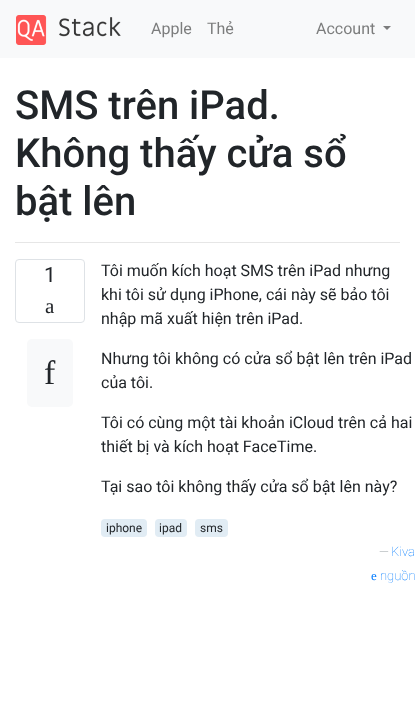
<svg xmlns="http://www.w3.org/2000/svg" width="415" height="718" viewBox="0 0 415 718">
  <style>
    .t1 { font: 16px Roboto; fill: #7c7d7d; }
    .t2 { font: 500 40px Roboto; fill: #212529; }
    .t3 { font: 21px Roboto; fill: #212529; }
    .t4 { font: 21px Liberation Serif; fill: #212529; }
    .t5 { font: 34px Liberation Serif; fill: #212529; }
    .t6 { font: 16px Roboto; fill: #212529; }
    .t7 { font: 12px Roboto; fill: #212529; }
    .t8 { font: 100 13px Roboto; fill: #6c757d; }
    .t9 { font: 100 13px Roboto; fill: #007bff; }
    .t10 { font: 13px Liberation Serif; fill: #007bff; }
  </style>
  <rect width="100%" height="100%" fill="#fff"/>
  <rect x="0" y="0" width="415" height="58" fill="#f8f9fa"/>
  <image x="16" y="15" width="105" height="30" href="images/1.png"/>
  <text x="151" y="34" class="t1">Apple</text>
  <text x="207" y="34" class="t1">Thẻ</text>
  <text x="316" y="34" class="t1">Account</text>
  <path d="M383 26H391L387 30Z" fill="#7c7d7d"/>
  <text x="15" y="119" class="t2">SMS trên iPad.</text>
  <text x="15" y="167" class="t2">Không thấy cửa sổ</text>
  <text x="15" y="215" class="t2">bật lên</text>
  <rect x="15" y="242" width="385" height="1" fill="#e6e6e6"/>
  <rect x="15.5" y="259.5" width="69" height="63" rx="3.5" fill="none" stroke="#dee2e6"/>
  <text x="44" y="282" class="t3">1</text>
  <text x="45" y="313" class="t4">a</text>
  <rect x="27" y="339" width="46" height="68" rx="5" fill="#f8f9fa"/>
  <text x="44" y="384" class="t5">f</text>
  <text x="101" y="276" class="t6">Tôi muốn kích hoạt SMS trên iPad nhưng</text>
  <text x="101" y="300" class="t6">khi tôi sử dụng iPhone, cái này sẽ bảo tôi</text>
  <text x="101" y="324" class="t6">nhập mã xuất hiện trên iPad.</text>
  <text x="101" y="364" class="t6">Nhưng tôi không có cửa sổ bật lên trên iPad</text>
  <text x="101" y="388" class="t6">của tôi.</text>
  <text x="101" y="428" class="t6">Tôi có cùng một tài khoản iCloud trên cả hai</text>
  <text x="101" y="452" class="t6">thiết bị và kích hoạt FaceTime.</text>
  <text x="101" y="492" class="t6">Tại sao tôi không thấy cửa sổ bật lên này?</text>
  <rect x="101" y="519" width="46" height="18" rx="4" fill="#e1ecf4"/>
  <text x="106" y="532" class="t7">iphone</text>
  <rect x="155" y="519" width="32" height="18" rx="4" fill="#e1ecf4"/>
  <text x="159" y="532" class="t7">ipad</text>
  <rect x="195" y="519" width="33" height="18" rx="4" fill="#e1ecf4"/>
  <text x="200" y="532" class="t7">sms</text>
  <text x="379" y="556" class="t8">—</text>
  <text x="391" y="556" class="t9">Kiva</text>
  <text x="371" y="580" class="t10">e</text>
  <text x="380" y="580" class="t9">nguồn</text>
</svg>
